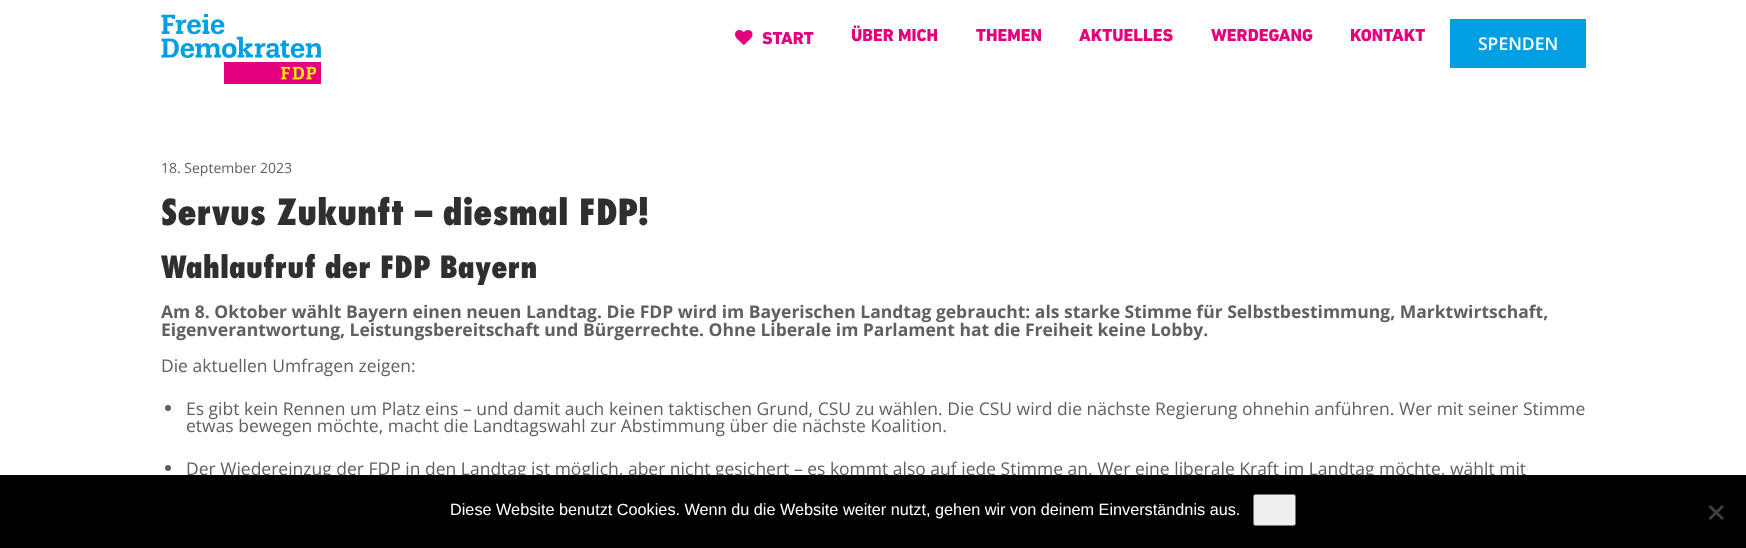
<svg xmlns="http://www.w3.org/2000/svg" width="1746" height="548" viewBox="0 0 1746 548">
  <style>
    .t1 { font: 900 17.5px DIN; fill: #e5007e; }
    .t2 { font: 600 17.5px Open Sans; fill: #fff; }
    .t3 { font: 14px Open Sans; fill: #606060; }
    .t4 { font: 800 35px Futura; fill: #2f2f2f; }
    .t5 { font: 800 30px Futura; fill: #2f2f2f; }
    .t6 { font: bold 17.5px Open Sans; fill: #606060; }
    .t7 { font: 17.5px Open Sans; fill: #606060; }
    .t8 { font: 16.25px Liberation Sans; fill: #fff; }
  </style>
  <rect width="100%" height="100%" fill="#fff"/>
  <image x="161" y="14" width="160" height="70" href="images/1.png"/>
  <image x="735" y="30" width="18" height="15" href="images/2.png"/>
  <text x="762" y="44" class="t1">START</text>
  <text x="851" y="41" class="t1">ÜBER MICH</text>
  <text x="976" y="41" class="t1">THEMEN</text>
  <text x="1079" y="41" class="t1">AKTUELLES</text>
  <text x="1211" y="41" class="t1">WERDEGANG</text>
  <text x="1350" y="41" class="t1">KONTAKT</text>
  <rect x="1450" y="19" width="136" height="49" fill="#009ee3"/>
  <text x="1478" y="50" class="t2">SPENDEN</text>
  <text x="161" y="173" class="t3">18. September 2023</text>
  <text x="161" y="225" class="t4">Servus Zukunft – diesmal FDP!</text>
  <text x="161" y="278" class="t5">Wahlaufruf der FDP Bayern</text>
  <text x="161" y="318" class="t6">Am 8. Oktober wählt Bayern einen neuen Landtag. Die FDP wird im Bayerischen Landtag gebraucht: als starke Stimme für Selbstbestimmung, Marktwirtschaft,</text>
  <text x="161" y="336" class="t6">Eigenverantwortung, Leistungsbereitschaft und Bürgerrechte. Ohne Liberale im Parlament hat die Freiheit keine Lobby.</text>
  <text x="161" y="372" class="t7">Die aktuellen Umfragen zeigen:</text>
  <circle cx="168" cy="408" r="3" fill="#606060"/>
  <text x="186" y="415" class="t7">Es gibt kein Rennen um Platz eins – und damit auch keinen taktischen Grund, CSU zu wählen. Die CSU wird die nächste Regierung ohnehin anführen. Wer mit seiner Stimme</text>
  <text x="186" y="432" class="t7">etwas bewegen möchte, macht die Landtagswahl zur Abstimmung über die nächste Koalition.</text>
  <circle cx="168" cy="468" r="3" fill="#606060"/>
  <text x="186" y="475" class="t7">Der Wiedereinzug der FDP in den Landtag ist möglich, aber nicht gesichert – es kommt also auf jede Stimme an. Wer eine liberale Kraft im Landtag möchte, wählt mit</text>
  <rect x="0" y="475" width="1746" height="73" fill="#000"/>
  <text x="450" y="515" class="t8">Diese Website benutzt Cookies. Wenn du die Website weiter nutzt, gehen wir von deinem Einverständnis aus.</text>
  <rect x="1253.5" y="494.5" width="42" height="31" rx="2" fill="#efefef" stroke="#767676"/>
  <path d="M1722 505L1724 507L1710.5 520L1708.5 518Z" fill="#404040"/>
  <path d="M1708.5 507L1710.5 505L1724 518L1722 520Z" fill="#404040"/>
</svg>
